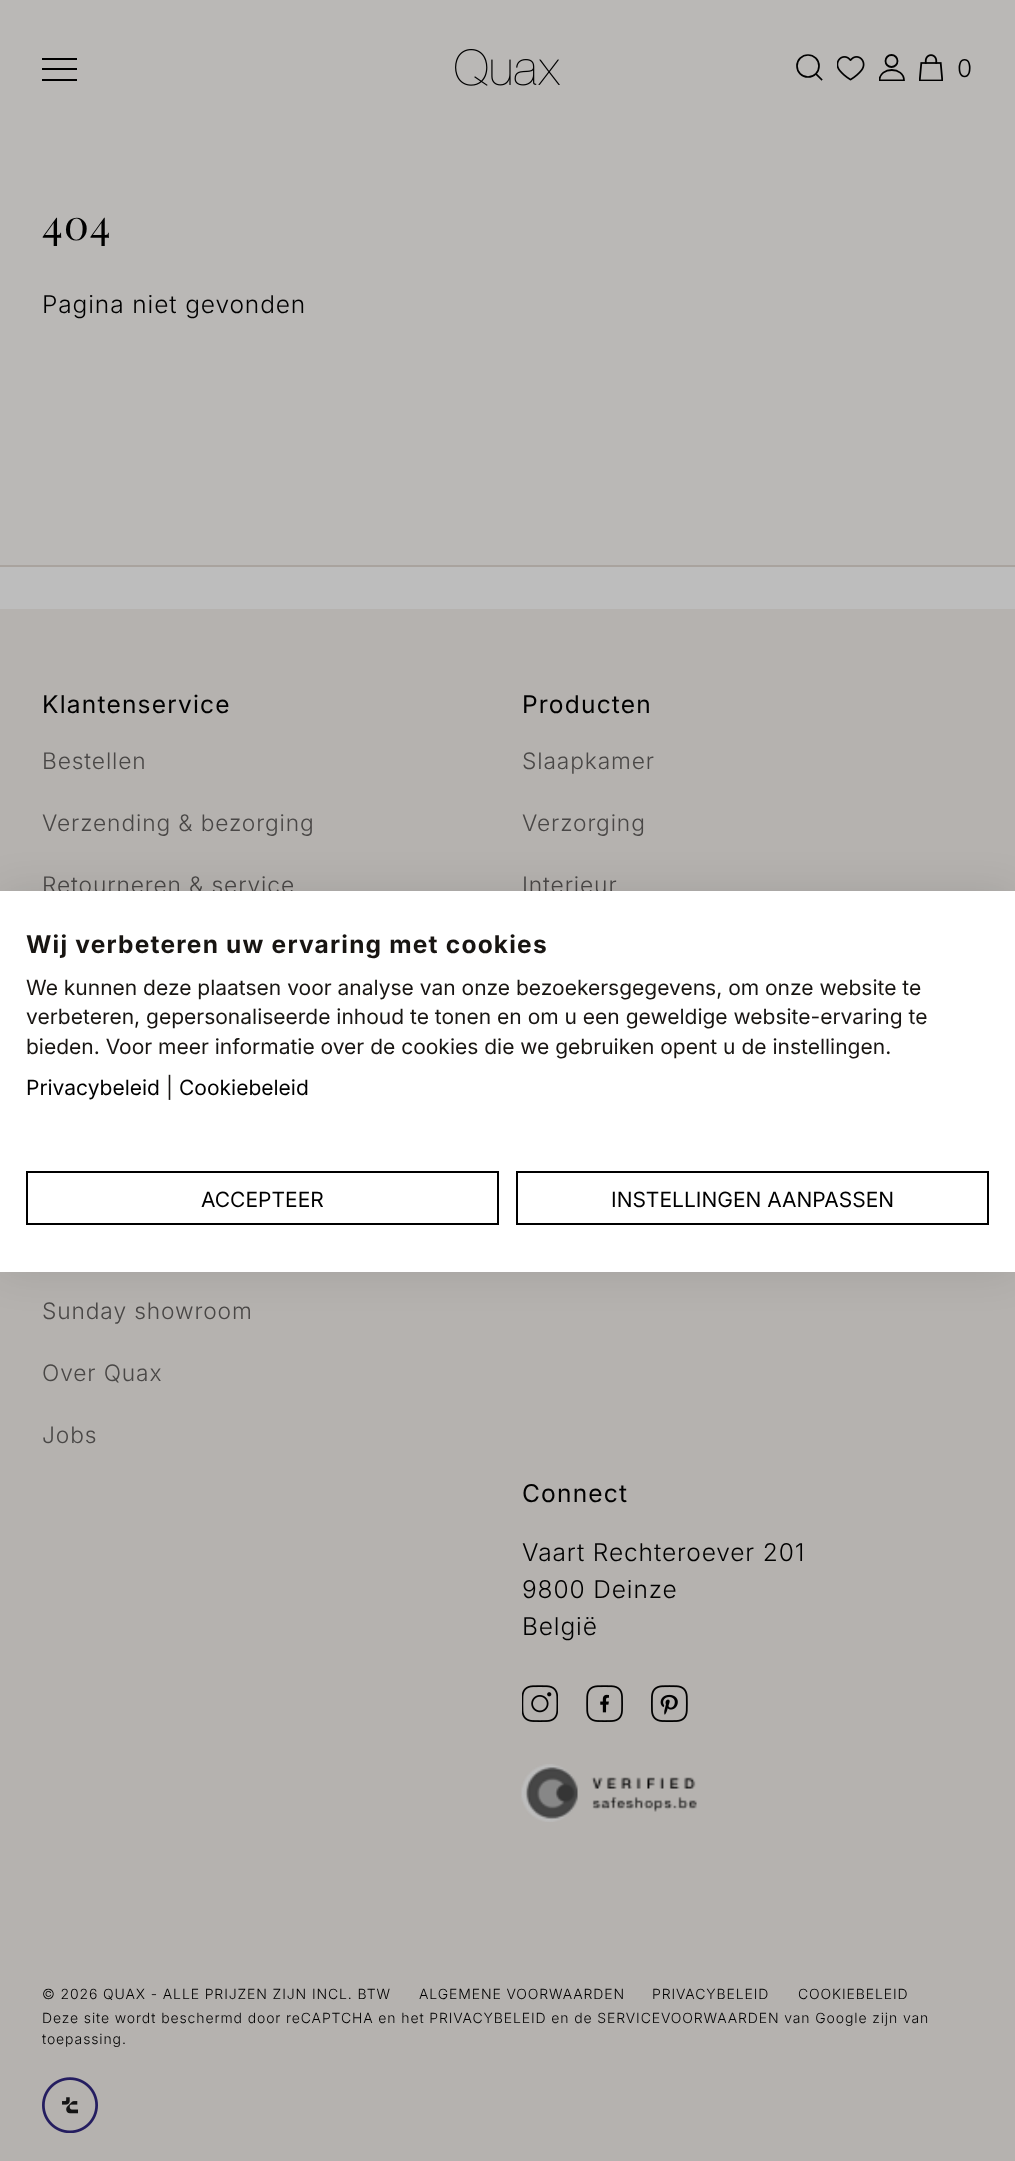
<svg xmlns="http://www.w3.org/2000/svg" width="1015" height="2161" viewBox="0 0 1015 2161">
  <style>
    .t1 { font: 300 24.5px Inter; letter-spacing: 0.88px; fill: #000; }
    .t2 { font: 42px Playfair Display; letter-spacing: 0.88px; fill: #000; }
    .t3 { font: 24.5px Inter; letter-spacing: 1.2px; fill: #000; }
    .t4 { font: 300 22.75px Inter; letter-spacing: 0.88px; fill: #494746; }
    .t5 { font: 300 14px Inter; letter-spacing: 0.88px; fill: #000; }
    .t6 { font: bold 24.5px Inter; letter-spacing: 1.2px; fill: #181512; }
    .t7 { font: 21px Inter; fill: #181512; }
    .t8 { font: 21px Inter; fill: #000; }
  </style>
  <defs>
    <clipPath id="clip1"><rect x="879" y="54" width="26" height="27"/></clipPath>
  </defs>
  <rect width="100%" height="100%" fill="#bab8b6"/>
  <rect x="42" y="68" width="35" height="2" fill="#000"/>
  <rect x="42" y="58" width="35" height="2" fill="#000"/>
  <rect x="42" y="79" width="35" height="2" fill="#000"/>
  <image x="455" y="49" width="105" height="37" href="images/1.png"/>
  <circle cx="808" cy="66" r="11" fill="none" stroke="#000" stroke-width="1.7"/>
  <path d="M821.5 79.5L816.5 74.5" fill="none" stroke="#000" stroke-width="1.7" stroke-linecap="square" stroke-linejoin="round"/>
  <image x="837" y="56" width="28" height="25" href="images/2.png"/>
  <circle cx="891.5" cy="61" r="6" fill="none" stroke="#000" stroke-width="1.8"/>
  <g clip-path="url(#clip1)">
    <path d="M904 80.5C904 66.5 879.5 66.5 879.5 80.5Z" fill="none" stroke="#000" stroke-width="1.8"/>
  </g>
  <image x="919" y="54" width="24" height="27" href="images/3.png"/>
  <text x="957" y="77" class="t1">0</text>
  <text x="42" y="240" class="t2">404</text>
  <text x="42" y="313" class="t1">Pagina niet gevonden</text>
  <rect x="0" y="567" width="1015" height="42" fill="#bdbdbd"/>
  <rect x="0" y="565" width="1015" height="2" fill="#a9a39e"/>
  <rect x="0" y="609" width="1015" height="1552" fill="#b5b2af"/>
  <text x="42" y="713" class="t3">Klantenservice</text>
  <text x="42" y="769" class="t4">Bestellen</text>
  <text x="42" y="831" class="t4">Verzending &amp; bezorging</text>
  <text x="42" y="893" class="t4">Retourneren &amp; service</text>
  <text x="522" y="713" class="t3">Producten</text>
  <text x="522" y="769" class="t4">Slaapkamer</text>
  <text x="522" y="831" class="t4">Verzorging</text>
  <text x="522" y="893" class="t4">Interieur</text>
  <text x="42" y="1319" class="t4">Sunday showroom</text>
  <text x="42" y="1381" class="t4">Over Quax</text>
  <text x="42" y="1443" class="t4">Jobs</text>
  <text x="522" y="1502" class="t3">Connect</text>
  <text x="522" y="1561" class="t1">Vaart Rechteroever 201</text>
  <text x="522" y="1598" class="t1">9800 Deinze</text>
  <text x="522" y="1635" class="t1">België</text>
  <image x="522" y="1685" width="36" height="37" href="images/4.png"/>
  <image x="586" y="1685" width="37" height="37" href="images/5.png"/>
  <image x="651" y="1685" width="37" height="37" href="images/6.png"/>
  <image x="521" y="1764" width="176" height="58" href="images/7.png"/>
  <text x="42" y="1999" class="t5">© 2026 QUAX - ALLE PRIJZEN ZIJN INCL. BTW</text>
  <text x="419" y="1999" class="t5">ALGEMENE VOORWAARDEN</text>
  <text x="652" y="1999" class="t5">PRIVACYBELEID</text>
  <text x="798" y="1999" class="t5">COOKIEBELEID</text>
  <text x="42" y="2023" class="t5">Deze site wordt beschermd door reCAPTCHA en het PRIVACYBELEID en de SERVICEVOORWAARDEN van Google zijn van</text>
  <text x="42" y="2044" class="t5">toepassing.</text>
  <image x="42" y="2077" width="56" height="56" href="images/8.png"/>
  <rect x="0" y="891" width="1015" height="381" fill="#0000001a" filter="blur(21px)"/>
  <rect x="0" y="891" width="1015" height="381" fill="#fff"/>
  <text x="26" y="953" class="t6">Wij verbeteren uw ervaring met cookies</text>
  <text x="26" y="995" class="t7">We kunnen deze plaatsen voor analyse van onze bezoekersgegevens, om onze website te</text>
  <text x="26" y="1024" class="t7">verbeteren, gepersonaliseerde inhoud te tonen en om u een geweldige website-ervaring te</text>
  <text x="26" y="1054" class="t7">bieden. Voor meer informatie over de cookies die we gebruiken opent u de instellingen.</text>
  <text x="26" y="1095" class="t8">Privacybeleid</text>
  <text x="166" y="1095" class="t7">|</text>
  <text x="179" y="1095" class="t8">Cookiebeleid</text>
  <rect x="27" y="1172" width="471" height="52" fill="none" stroke="#000" stroke-width="2"/>
  <text x="201" y="1207" class="t8">ACCEPTEER</text>
  <rect x="517" y="1172" width="471" height="52" fill="none" stroke="#000" stroke-width="2"/>
  <text x="611" y="1207" class="t8">INSTELLINGEN AANPASSEN</text>
</svg>
